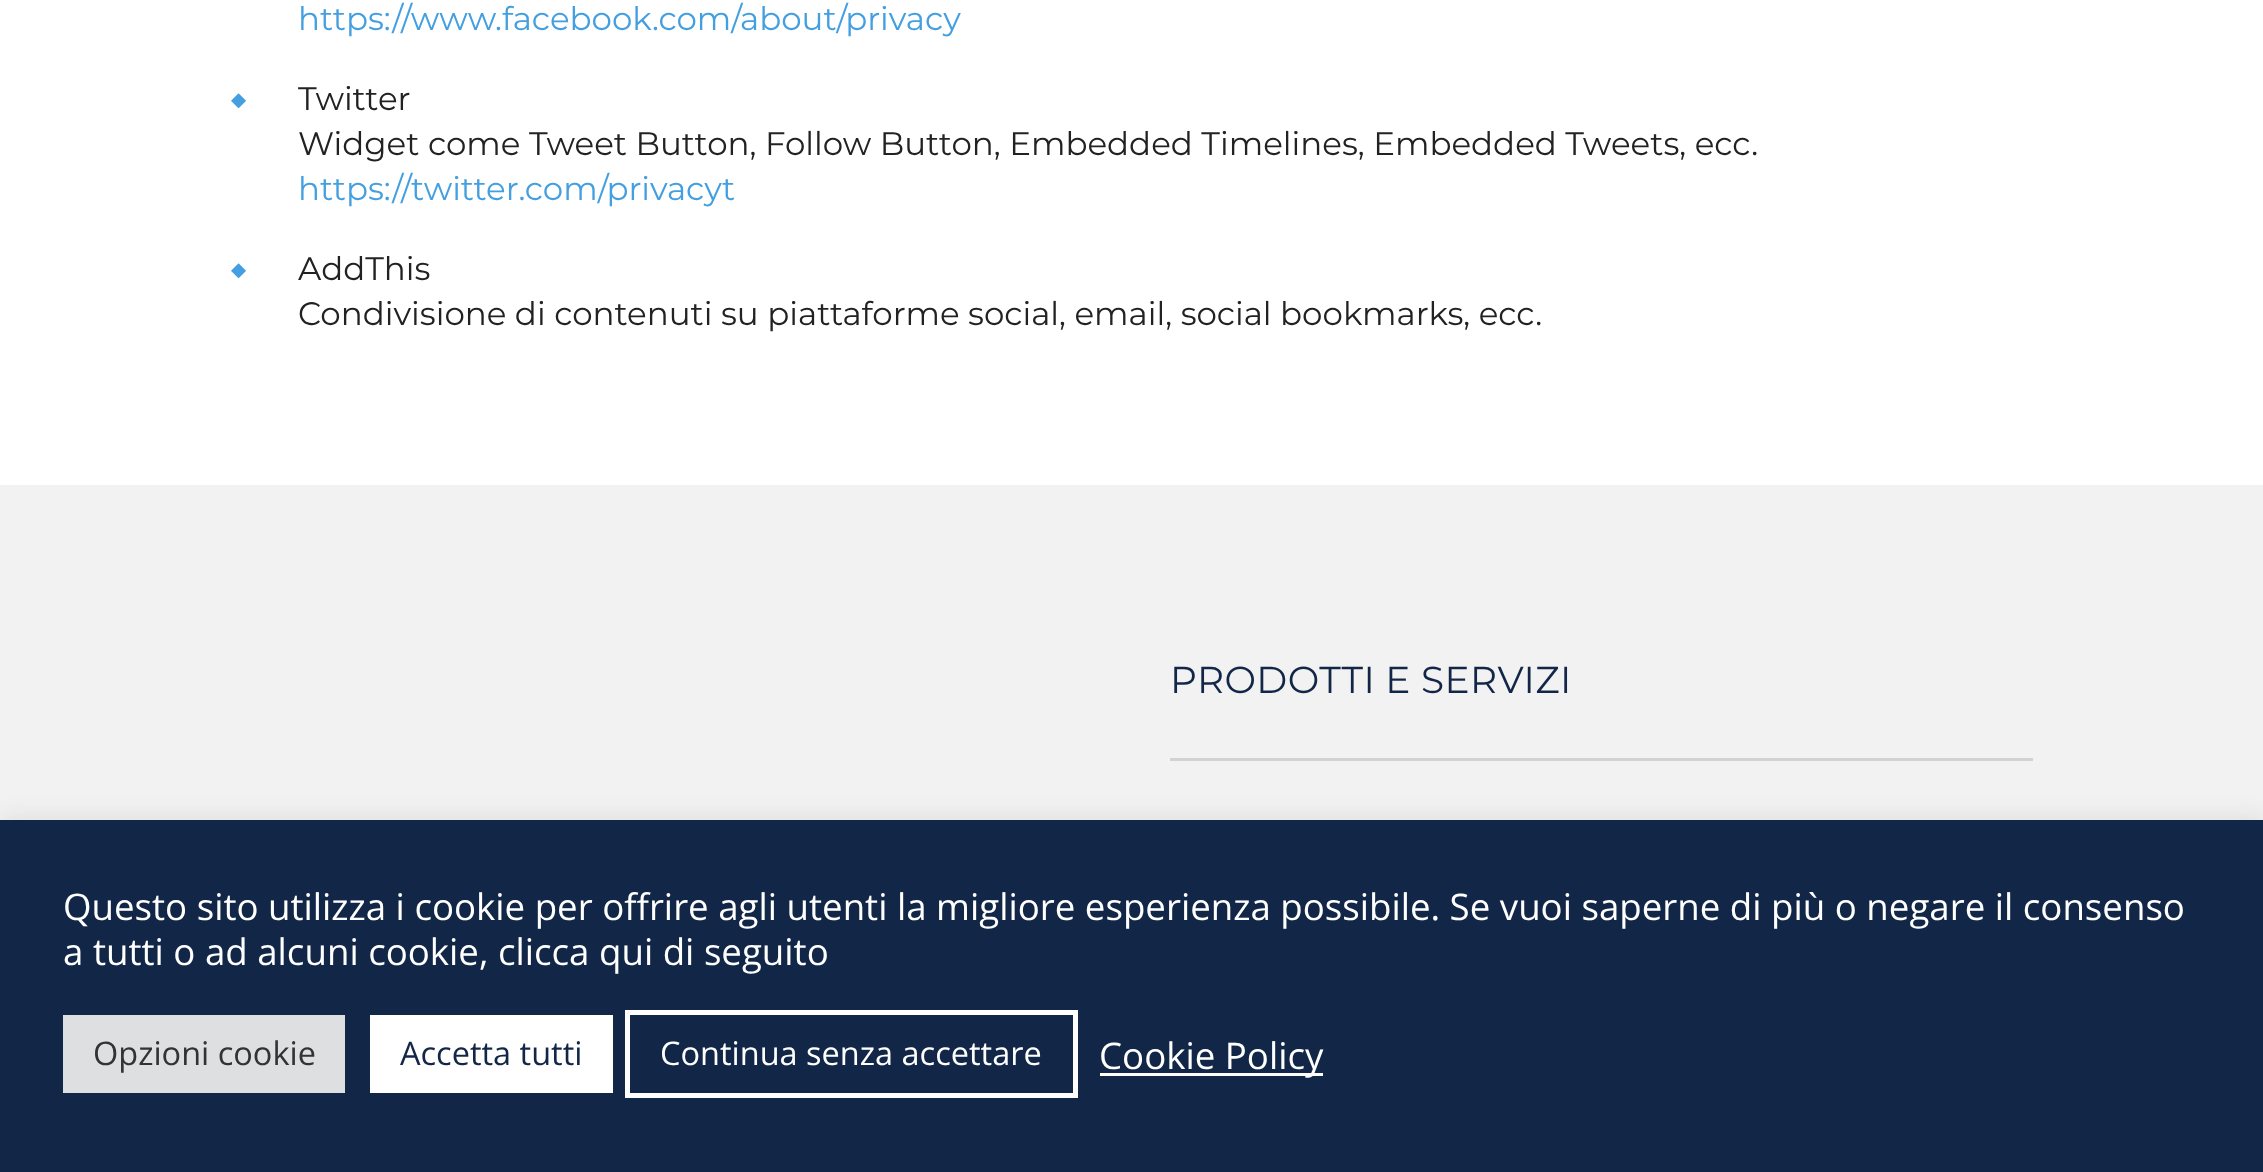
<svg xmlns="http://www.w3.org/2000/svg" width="2263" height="1172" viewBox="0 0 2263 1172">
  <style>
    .t1 { font: 32.5px Montserrat; fill: #439fe0; }
    .t2 { font: 32.5px Montserrat; fill: #222; }
    .t3 { font: 37.5px Montserrat; letter-spacing: 0.4px; fill: #122747; }
    .t4 { font: 36.67px Open Sans; fill: #fff; }
    .t5 { font: 32.5px Open Sans; fill: #333; }
    .t6 { font: 32.5px Open Sans; fill: #122747; }
    .t7 { font: 32.5px Open Sans; fill: #fff; }
  </style>
  <rect width="100%" height="100%" fill="#fff"/>
  <text x="298" y="30" class="t1">https://www.facebook.com/about/privacy</text>
  <image x="231" y="93" width="15" height="16" href="images/1.png"/>
  <text x="298" y="110" class="t2">Twitter</text>
  <text x="298" y="155" class="t2">Widget come Tweet Button, Follow Button, Embedded Timelines, Embedded Tweets, ecc.</text>
  <text x="298" y="200" class="t1">https://twitter.com/privacyt</text>
  <image x="231" y="263" width="15" height="16" href="images/1.png"/>
  <text x="298" y="280" class="t2">AddThis</text>
  <text x="298" y="325" class="t2">Condivisione di contenuti su piattaforme social, email, social bookmarks, ecc.</text>
  <rect x="0" y="485" width="2263" height="335" fill="#f2f2f2"/>
  <rect x="1170" y="758" width="863" height="3" fill="#d2d2d2"/>
  <text x="1170" y="693" class="t3">PRODOTTI E SERVIZI</text>
  <rect x="0" y="818" width="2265" height="352" fill="#acabab4d" filter="blur(12.5px)"/>
  <rect x="0" y="820" width="2263" height="352" fill="#122747"/>
  <text x="63" y="920" class="t4">Questo sito utilizza i cookie per offrire agli utenti la migliore esperienza possibile. Se vuoi saperne di più o negare il consenso</text>
  <text x="63" y="965" class="t4">a tutti o ad alcuni cookie, clicca qui di seguito</text>
  <rect x="63" y="1015" width="282" height="78" fill="#dedfe0"/>
  <text x="93" y="1065" class="t5">Opzioni cookie</text>
  <rect x="370" y="1015" width="243" height="78" fill="#fff"/>
  <text x="400" y="1065" class="t6">Accetta tutti</text>
  <rect x="627.5" y="1012.5" width="448" height="83" fill="none" stroke="#fff" stroke-width="5"/>
  <text x="660" y="1065" class="t7">Continua senza accettare</text>
  <rect x="1100" y="1073" width="223" height="3" fill="#fff"/>
  <text x="1099" y="1069" class="t4">Cookie Policy</text>
</svg>
